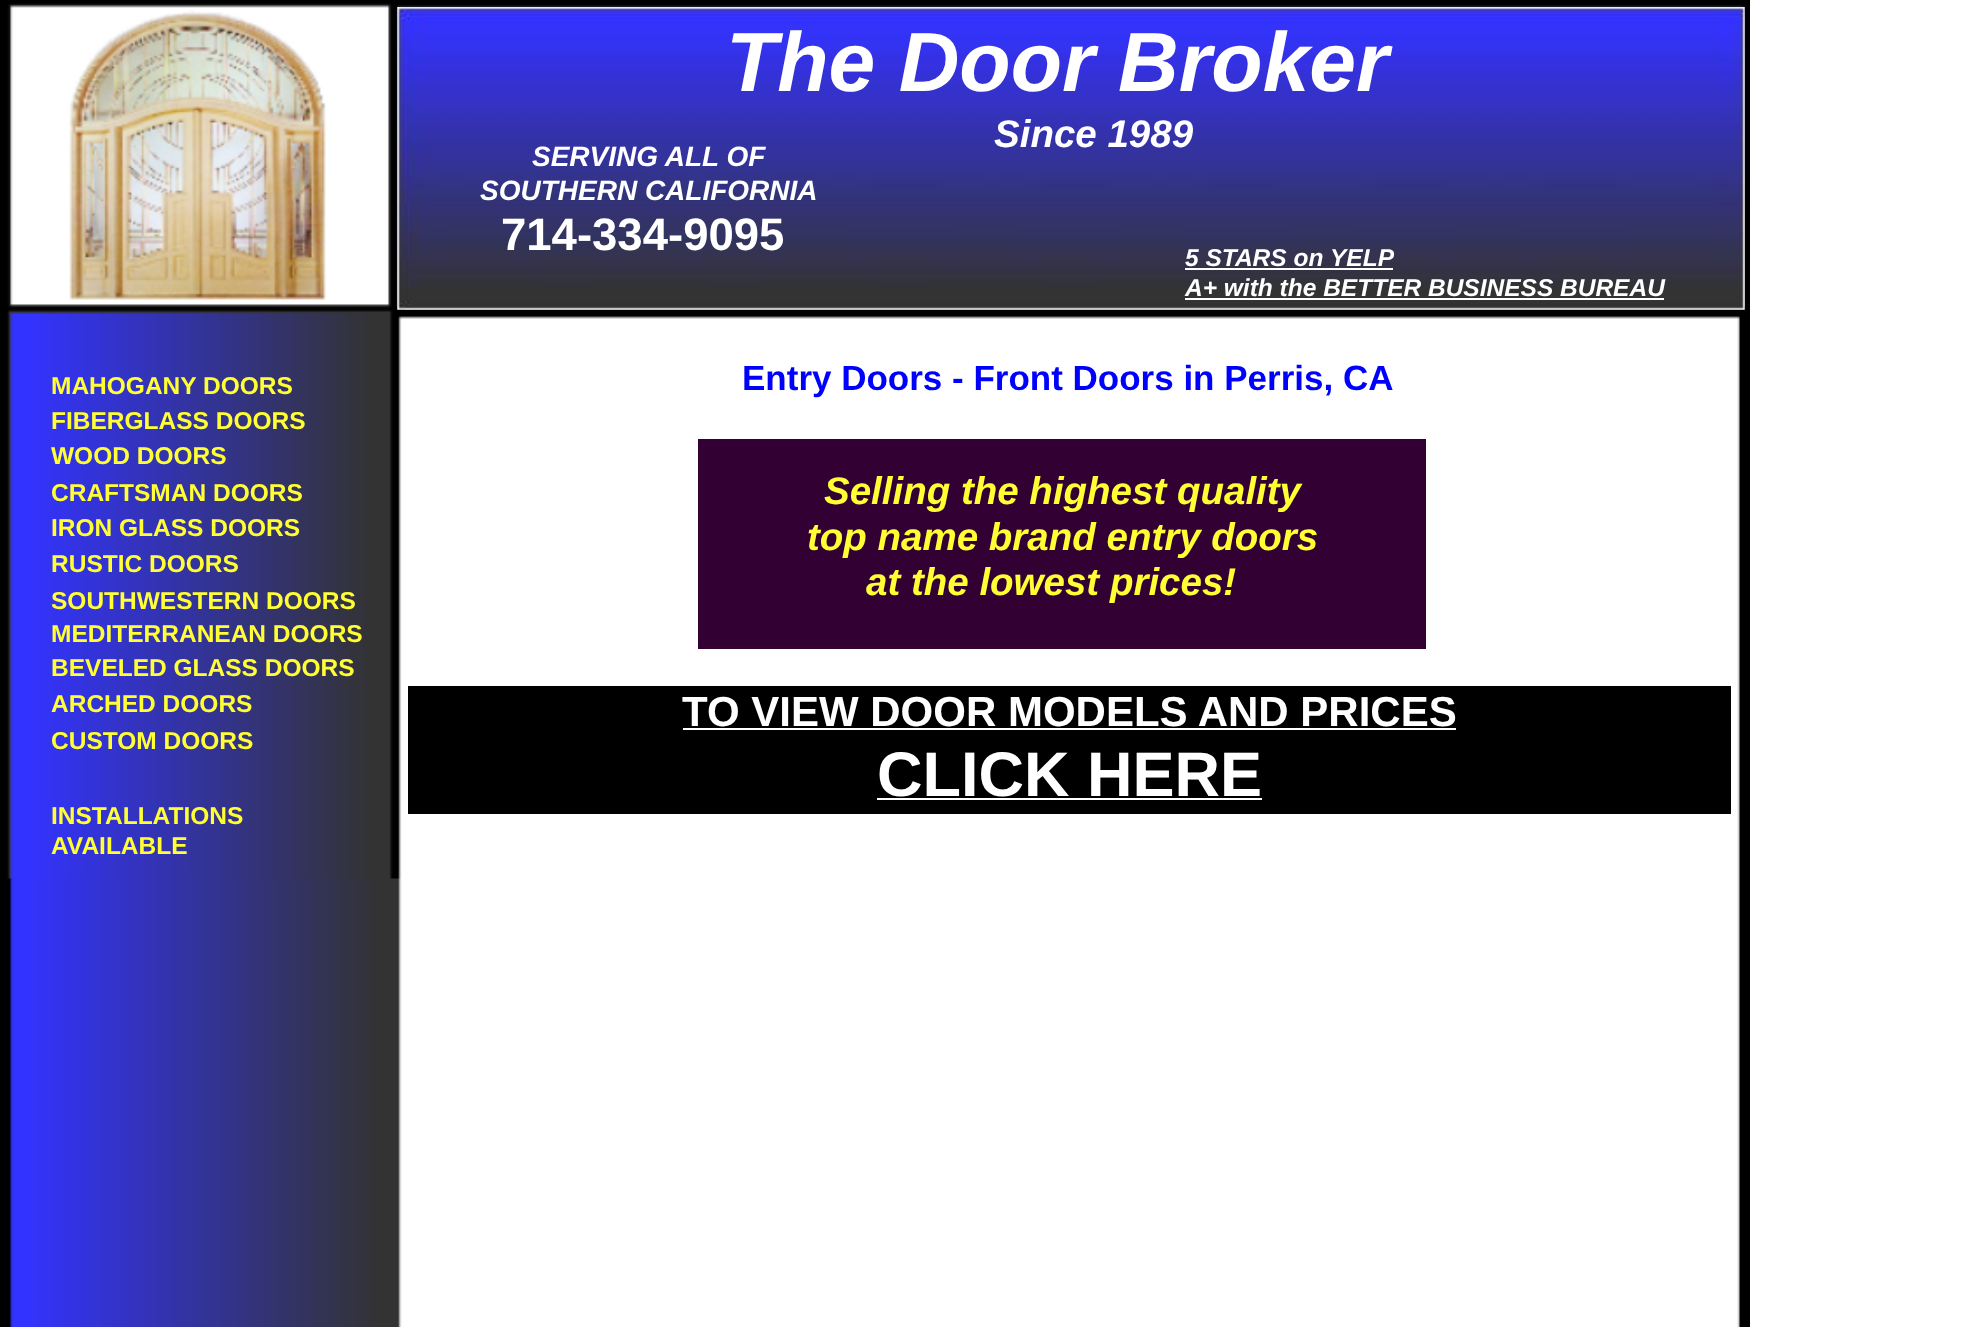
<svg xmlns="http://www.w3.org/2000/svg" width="1969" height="1327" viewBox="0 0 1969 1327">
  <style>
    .t1 { font: italic bold 84px Liberation Sans; fill: #fff; }
    .t2 { font: italic bold 38.5px Liberation Sans; fill: #fff; }
    .t3 { font: italic bold 28px Liberation Sans; fill: #fff; }
    .t4 { font: bold 45.5px Liberation Sans; fill: #fff; }
    .t5 { font: italic bold 24.5px Liberation Sans; fill: #fff; }
    .t6 { font: bold 24.5px Liberation Sans; fill: #ff3; }
    .t7 { font: bold 35px Liberation Sans; fill: #00f; }
    .t8 { font: italic bold 38.5px Liberation Sans; fill: #ff3; }
    .t9 { font: bold 42px Liberation Sans; fill: #fff; }
    .t10 { font: bold 63px Liberation Sans; fill: #fff; }
  </style>
  <rect width="100%" height="100%" fill="#fff"/>
  <image x="0" y="0" width="1750" height="1327" href="images/1.png"/>
  <image x="397" y="7" width="1348" height="303" href="images/2.png"/>
  <text x="726" y="91" class="t1">The Door Broker</text>
  <text x="994" y="147" class="t2">Since 1989</text>
  <text x="532" y="166" class="t3">SERVING ALL OF</text>
  <text x="480" y="200" class="t3">SOUTHERN CALIFORNIA</text>
  <text x="501" y="250" class="t4">714-334-9095</text>
  <text x="1185" y="266" class="t5">5 STARS on</text>
  <rect x="1185" y="268" width="208" height="2" fill="#fff"/>
  <text x="1330" y="266" class="t5">YELP</text>
  <text x="1185" y="296" class="t5">A+ with the BETTER BUSINESS BUREAU</text>
  <rect x="1185" y="298" width="479" height="2" fill="#fff"/>
  <text x="51" y="394" class="t6">MAHOGANY DOORS</text>
  <text x="742" y="390" class="t7">Entry Doors - Front Doors in Perris, CA</text>
  <text x="51" y="429" class="t6">FIBERGLASS DOORS</text>
  <text x="51" y="464" class="t6">WOOD DOORS</text>
  <text x="51" y="501" class="t6">CRAFTSMAN DOORS</text>
  <rect x="698" y="439" width="728" height="210" fill="#303"/>
  <text x="824" y="504" class="t8">Selling the highest quality</text>
  <text x="807" y="550" class="t8">top name brand entry doors</text>
  <text x="866" y="595" class="t8">at the lowest prices!</text>
  <text x="51" y="536" class="t6">IRON GLASS DOORS</text>
  <text x="51" y="572" class="t6">RUSTIC DOORS</text>
  <text x="51" y="609" class="t6">SOUTHWESTERN DOORS</text>
  <text x="51" y="642" class="t6">MEDITERRANEAN DOORS</text>
  <text x="51" y="676" class="t6">BEVELED GLASS DOORS</text>
  <text x="51" y="712" class="t6">ARCHED DOORS</text>
  <rect x="408" y="686" width="1323" height="128" fill="#000"/>
  <text x="682" y="726" class="t9">TO VIEW DOOR MODELS AND PRICES</text>
  <rect x="683" y="728" width="773" height="2" fill="#fff"/>
  <text x="877" y="796" class="t10">CLICK HERE</text>
  <rect x="877" y="798" width="385" height="2" fill="#fff"/>
  <text x="51" y="749" class="t6">CUSTOM DOORS</text>
  <text x="51" y="824" class="t6">INSTALLATIONS</text>
  <text x="51" y="854" class="t6">AVAILABLE</text>
  <image x="7" y="878" width="394" height="449" href="images/3.png"/>
</svg>
